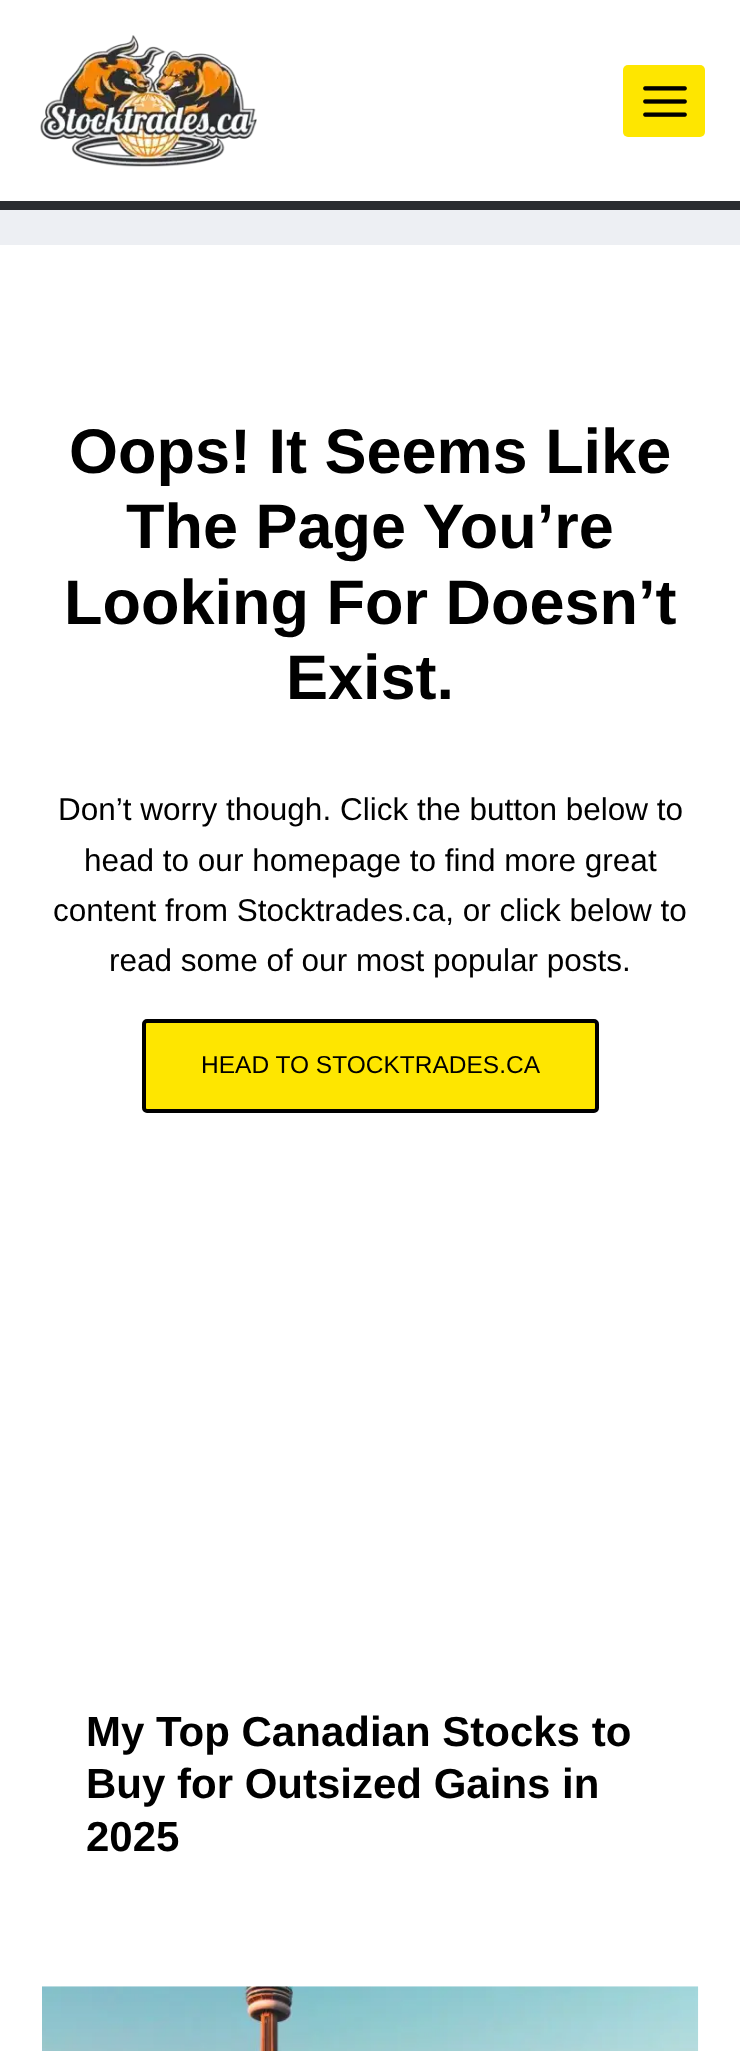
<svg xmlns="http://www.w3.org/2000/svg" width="740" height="2051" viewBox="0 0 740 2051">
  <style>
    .t1 { font: bold 63px Liberation Sans; fill: #000; }
    .t2 { font: 31.5px Liberation Sans; fill: #000; }
    .t3 { font: 24.5px Liberation Sans; fill: #000; }
    .t4 { font: bold 42px Liberation Sans; fill: #000; }
  </style>
  <rect width="100%" height="100%" fill="#edeff3"/>
  <rect x="0" y="0" width="740" height="201" fill="#fff"/>
  <rect x="0" y="201" width="740" height="9" fill="#2b2d31"/>
  <image x="40" y="35" width="217" height="132" href="images/1.png"/>
  <rect x="623" y="65" width="82" height="72" rx="5" fill="#fee600"/>
  <image x="643" y="86" width="44" height="31" href="images/2.png"/>
  <rect x="0" y="245" width="740" height="1806" fill="#fff"/>
  <text x="69" y="473" class="t1">Oops! It Seems Like</text>
  <text x="126" y="548" class="t1">The Page You’re</text>
  <text x="64" y="624" class="t1">Looking For Doesn’t</text>
  <text x="286" y="699" class="t1">Exist.</text>
  <text x="58" y="820" class="t2">Don’t worry though. Click the button below to</text>
  <text x="84" y="871" class="t2">head to our homepage to find more great</text>
  <text x="53" y="921" class="t2">content from Stocktrades.ca, or click below to</text>
  <text x="109" y="971" class="t2">read some of our most popular posts.</text>
  <rect x="144" y="1021" width="453" height="90" rx="3" fill="#fee600" stroke="#000" stroke-width="4"/>
  <text x="201" y="1073" class="t3">HEAD TO STOCKTRADES.CA</text>
  <text x="86" y="1746" class="t4">My Top Canadian Stocks to</text>
  <text x="86" y="1798" class="t4">Buy for Outsized Gains in</text>
  <text x="86" y="1851" class="t4">2025</text>
  <image x="42" y="1986" width="657" height="65" href="images/3.png"/>
</svg>
